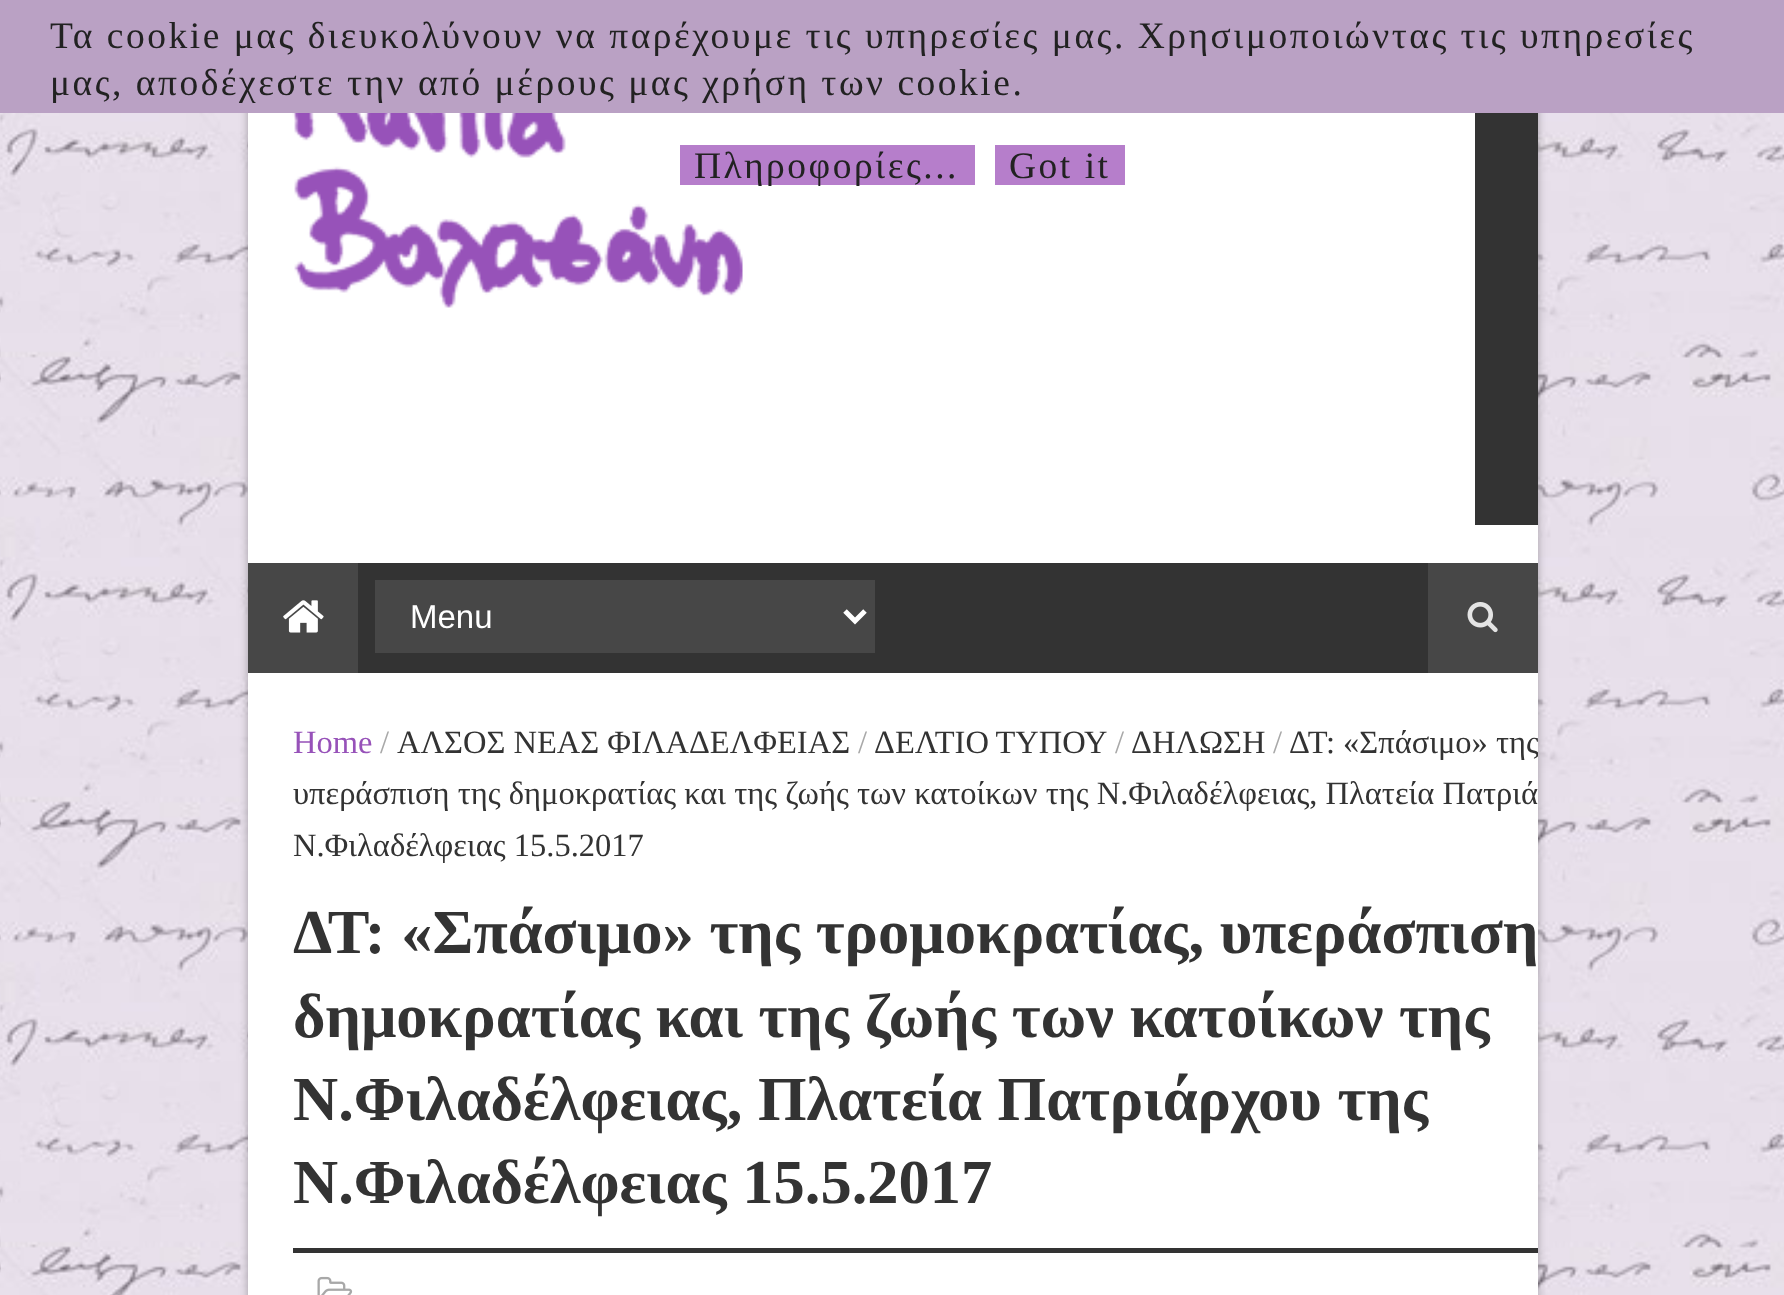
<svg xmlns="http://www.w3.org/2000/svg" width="1784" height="1295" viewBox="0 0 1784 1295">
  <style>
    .t1 { font: 37.5px Liberation Serif; letter-spacing: 2.5px; fill: #222; }
    .t2 { font: 33px Liberation Sans; fill: #fff; }
    .t3 { font: 32.5px Liberation Serif; fill: #9752b9; }
    .t4 { font: 32.5px Liberation Serif; fill: #a8a8a8; }
    .t5 { font: 32.5px Liberation Serif; fill: #333; }
    .t6 { font: bold 62.5px Liberation Serif; fill: #333; }
  </style>
  <defs>
    <clipPath id="clip1"><rect x="293" y="718" width="1245" height="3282"/></clipPath>
  </defs>
  <rect width="100%" height="100%" fill="#fff"/>
  <image x="0" y="113" width="1784" height="1182" href="images/1.png"/>
  <rect x="248" y="-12" width="1290" height="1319" fill="#0000004d" filter="blur(4px)"/>
  <rect x="0" y="0" width="1784" height="113" fill="#baa1c4"/>
  <text x="50" y="48" class="t1">Τα cookie μας διευκολύνουν να παρέχουμε τις υπηρεσίες μας. Χρησιμοποιώντας τις υπηρεσίες</text>
  <text x="50" y="95" class="t1">μας, αποδέχεστε την από μέρους μας χρήση των cookie.</text>
  <rect x="248" y="113" width="1290" height="1182" fill="#fff"/>
  <image x="292" y="113" width="451" height="195" href="images/2.png"/>
  <rect x="680" y="145" width="295" height="40" fill="#b67ecb"/>
  <text x="694" y="178" class="t1">Πληροφορίες...</text>
  <rect x="995" y="145" width="130" height="40" fill="#b67ecb"/>
  <text x="1009" y="178" class="t1">Got it</text>
  <rect x="1475" y="113" width="63" height="412" fill="#333"/>
  <rect x="358" y="563" width="1070" height="110" fill="#333"/>
  <rect x="248" y="563" width="110" height="110" fill="#474747"/>
  <image x="283" y="600" width="41" height="33" href="images/3.png"/>
  <rect x="375" y="580" width="500" height="73" fill="#474747"/>
  <path d="M845 611L855 621L865 611" fill="none" stroke="#fff" stroke-width="5"/>
  <text x="410" y="628" class="t2">Menu</text>
  <rect x="1428" y="563" width="110" height="110" fill="#474747"/>
  <image x="1467" y="602" width="31" height="31" href="images/4.png"/>
  <text x="293" y="753" class="t3">Home</text>
  <text x="380" y="753" class="t4">/</text>
  <text x="397" y="753" class="t5">ΑΛΣΟΣ ΝΕΑΣ ΦΙΛΑΔΕΛΦΕΙΑΣ</text>
  <text x="858" y="753" class="t4">/</text>
  <text x="874" y="753" word-spacing="-1" class="t5">ΔΕΛΤΙΟ ΤΥΠΟΥ</text>
  <text x="1115" y="753" class="t4">/</text>
  <text x="1131" y="753" class="t5">ΔΗΛΩΣΗ</text>
  <text x="1273" y="753" class="t4">/</text>
  <g clip-path="url(#clip1)">
    <text x="1289" y="753" class="t5">ΔΤ: «Σπάσιμο» της</text>
  </g>
  <text x="293" y="804" class="t5">υπεράσπιση της δημοκρατίας και της ζωής των κατοίκων της Ν.Φιλαδέλφειας, Πλατεία Πατριά</text>
  <text x="293" y="856" class="t5">Ν.Φιλαδέλφειας 15.5.2017</text>
  <rect x="293" y="1248" width="1245" height="5" fill="#333"/>
  <text x="293" y="953" class="t6">ΔΤ: «Σπάσιμο» της τρομοκρατίας, υπεράσπιση</text>
  <text x="293" y="1037" class="t6">δημοκρατίας και της ζωής των κατοίκων της</text>
  <text x="293" y="1120" class="t6">Ν.Φιλαδέλφειας, Πλατεία Πατριάρχου της</text>
  <text x="293" y="1203" class="t6">Ν.Φιλαδέλφειας 15.5.2017</text>
  <image x="317" y="1276" width="36" height="19" href="images/5.png"/>
</svg>
